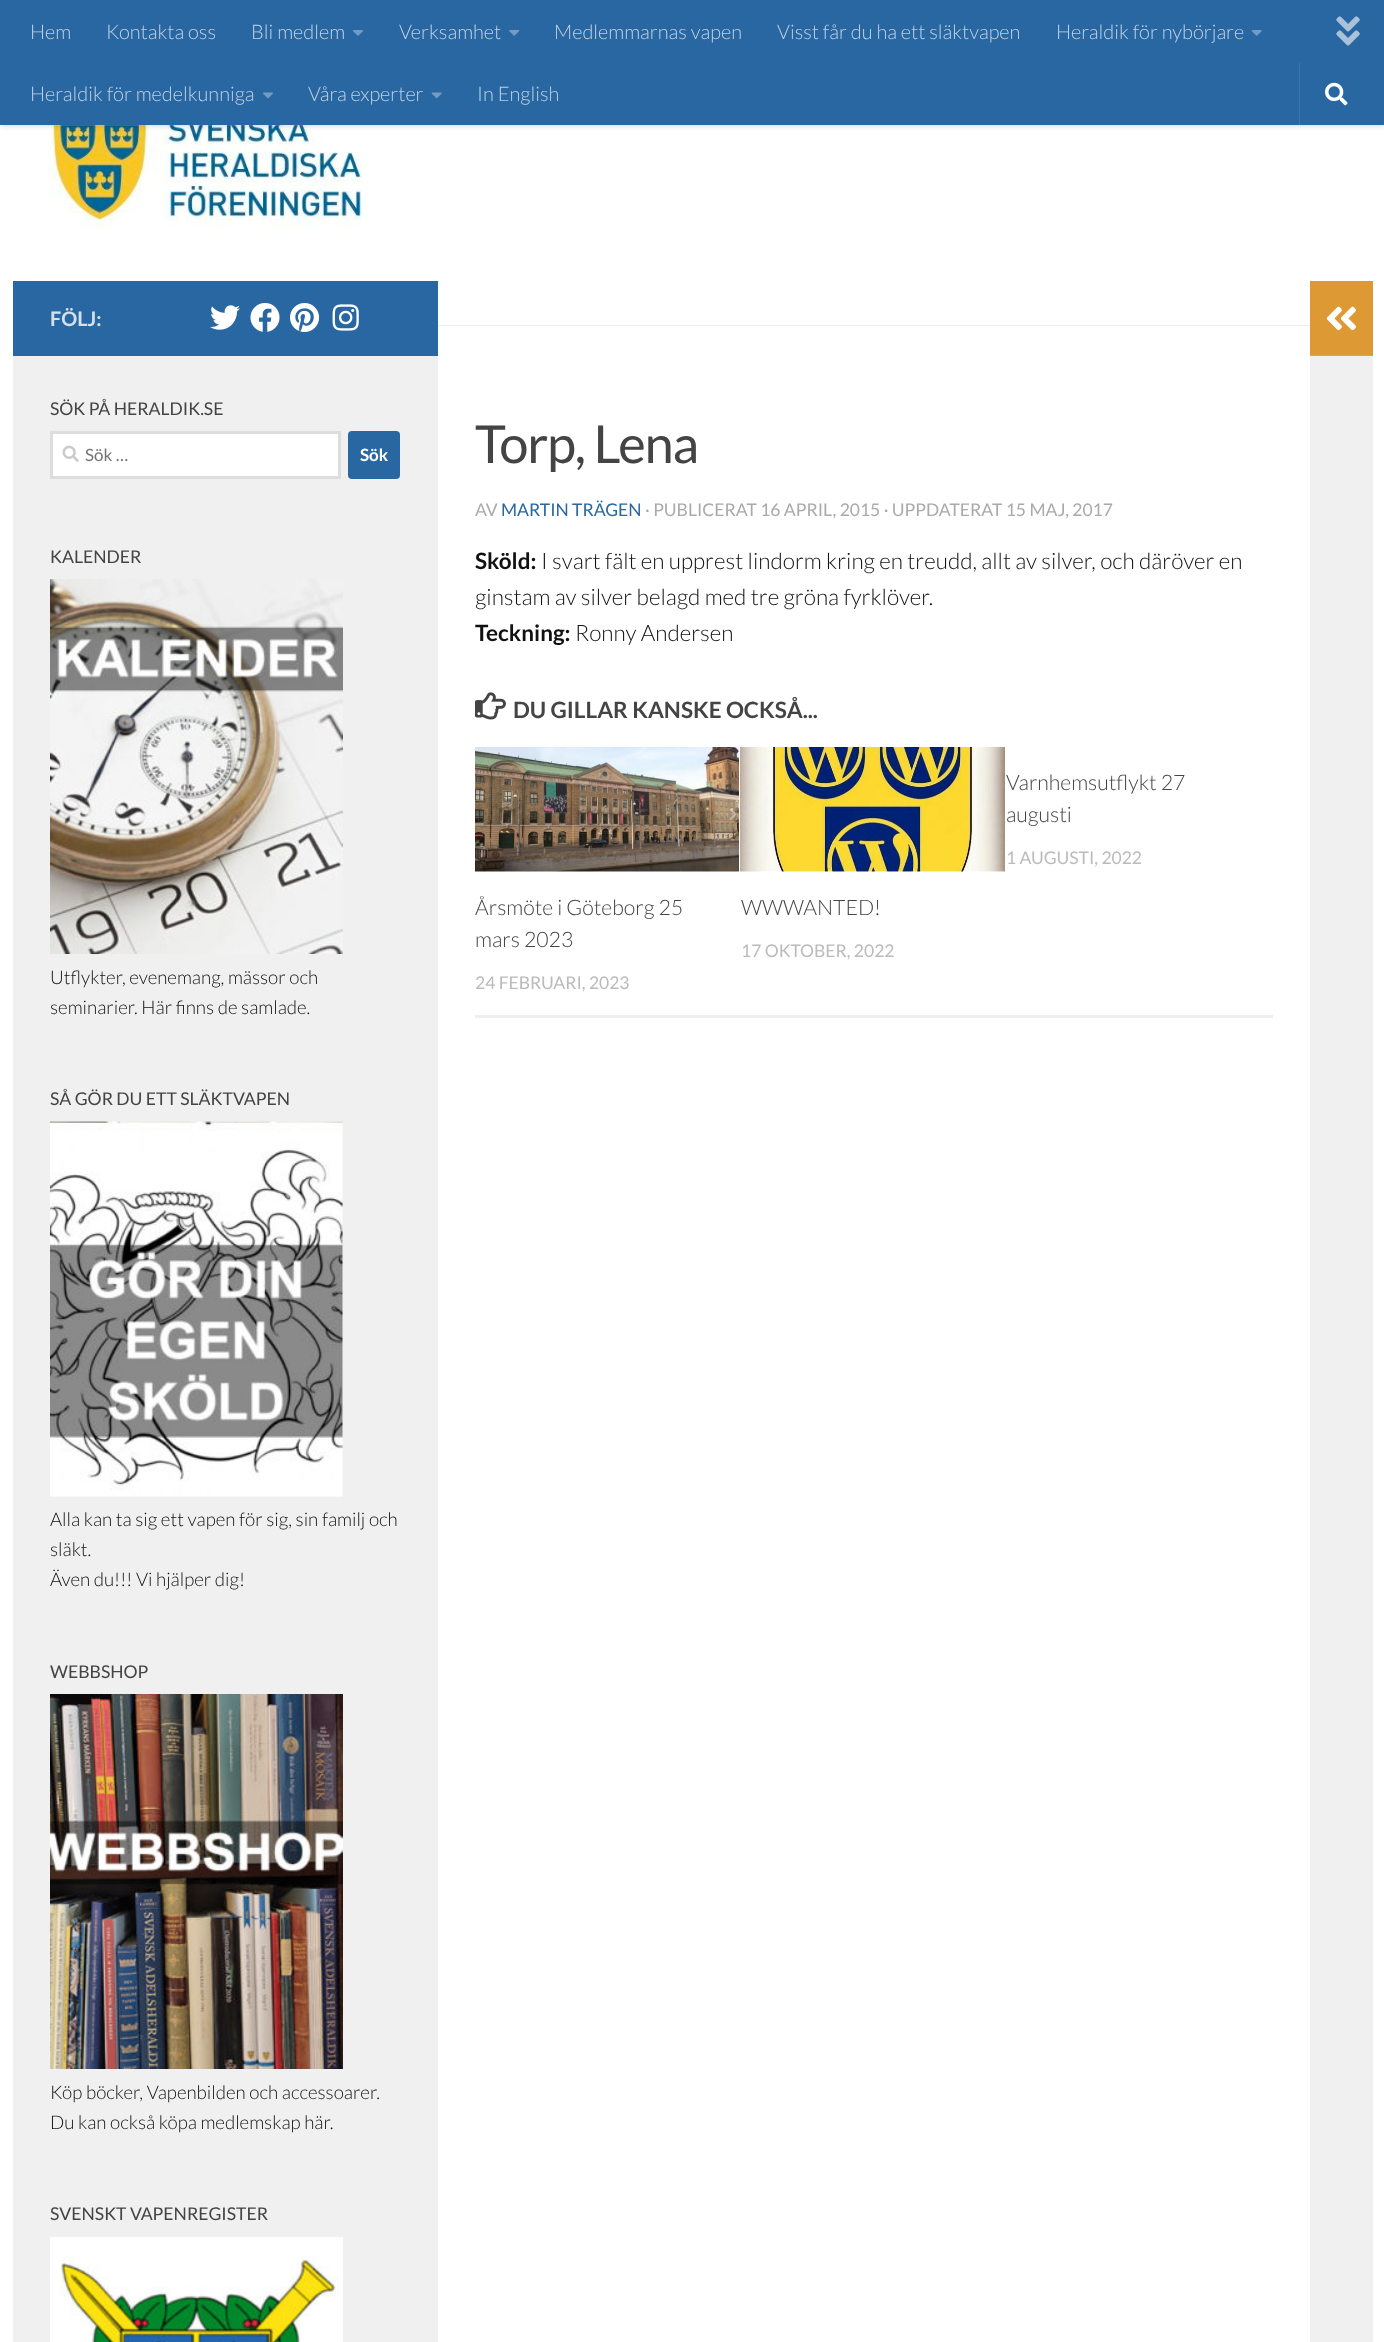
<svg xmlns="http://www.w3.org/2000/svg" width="1384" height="2342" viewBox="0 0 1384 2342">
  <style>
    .t1 { font: 300 20px Lato; fill: #bfd1e3; }
    .t2 { font: bold 20px Lato; fill: #d4e1ec; }
    .t3 { font: 17.6px Lato; fill: #444; }
    .t4 { font: 17px Lato; fill: #757575; }
    .t5 { font: bold 17px Lato; fill: #fff; }
    .t6 { font: 300 18.75px Lato; fill: #111; }
    .t7 { font: 52.5px Lato; letter-spacing: -1.25px; fill: #444; }
    .t8 { font: 17.5px Lato; fill: #aaa; }
    .t9 { font: 17.5px Lato; fill: #2967a2; }
    .t10 { font: bold 22.5px Lato; fill: #111; }
    .t11 { font: 300 22.5px Lato; fill: #111; }
    .t12 { font: bold 22.5px Lato; fill: #444; }
    .t13 { font: 300 21.25px Lato; fill: #444; }
    .t14 { font: 17.5px Lato; fill: #bbb; }
  </style>
  <rect width="100%" height="100%" fill="#fff"/>
  <image x="50" y="125" width="313" height="103" href="images/8.png"/>
  <rect x="53" y="125" width="251" height="1" fill="#ffffff26"/>
  <rect x="0" y="0" width="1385" height="125" fill="#00000033" filter="blur(3px)"/>
  <rect x="0" y="0" width="1384" height="125" fill="#2967a2"/>
  <text x="30" y="39" class="t1">Hem</text>
  <text x="106" y="39" class="t1">Kontakta oss</text>
  <text x="251" y="39" class="t1">Bli medlem</text>
  <image x="353" y="30" width="10" height="6" href="images/1.png"/>
  <text x="399" y="39" class="t1">Verksamhet</text>
  <image x="509" y="30" width="11" height="6" href="images/2.png"/>
  <text x="554" y="39" class="t1">Medlemmarnas vapen</text>
  <text x="777" y="39" class="t1">Visst får du ha ett släktvapen</text>
  <text x="1056" y="39" class="t1">Heraldik för nybörjare</text>
  <image x="1251" y="30" width="11" height="6" href="images/3.png"/>
  <text x="30" y="101" class="t1">Heraldik för medelkunniga</text>
  <image x="263" y="92" width="10" height="7" href="images/4.png"/>
  <text x="308" y="101" class="t1">Våra experter</text>
  <image x="431" y="92" width="11" height="7" href="images/5.png"/>
  <text x="477" y="101" class="t1">In English</text>
  <image x="1336" y="16" width="24" height="30" href="images/6.png"/>
  <rect x="1299" y="63" width="1" height="62" fill="#3e76ab"/>
  <image x="1325" y="82" width="23" height="24" href="images/7.png"/>
  <rect x="13" y="281" width="425" height="75" fill="#2967a2"/>
  <text x="50" y="326" class="t2">FÖLJ:</text>
  <image x="210" y="305" width="30" height="25" href="images/9.png"/>
  <image x="250" y="303" width="30" height="29" href="images/10.png"/>
  <image x="290" y="303" width="30" height="29" href="images/11.png"/>
  <image x="332" y="304" width="27" height="27" href="images/12.png"/>
  <rect x="13" y="356" width="425" height="1986" fill="#f0f0f0"/>
  <text x="50" y="415" class="t3">SÖK PÅ HERALDIK.SE</text>
  <rect x="51.5" y="432.5" width="288" height="45" fill="#fff" stroke="#ddd" stroke-width="3"/>
  <image x="62" y="445" width="17" height="17" href="images/13.png"/>
  <text x="85" y="461" class="t4">Sök …</text>
  <rect x="348" y="431" width="52" height="48" rx="4" fill="#2967a2"/>
  <text x="360" y="461" class="t5">Sök</text>
  <text x="50" y="563" class="t3">KALENDER</text>
  <image x="50" y="579" width="293" height="375" href="images/14.png"/>
  <text x="50" y="984" class="t6">Utflykter, evenemang, mässor och</text>
  <text x="50" y="1014" class="t6">seminarier. Här finns de samlade.</text>
  <text x="50" y="1105" class="t3">SÅ GÖR DU ETT SLÄKTVAPEN</text>
  <image x="50" y="1121" width="293" height="376" href="images/15.png"/>
  <text x="50" y="1526" class="t6">Alla kan ta sig ett vapen för sig, sin familj och</text>
  <text x="50" y="1556" class="t6">släkt.</text>
  <text x="50" y="1586" class="t6">Även du!!! Vi hjälper dig!</text>
  <text x="50" y="1678" class="t3">WEBBSHOP</text>
  <image x="50" y="1694" width="293" height="375" href="images/16.png"/>
  <text x="50" y="2099" class="t6">Köp böcker, Vapenbilden och accessoarer.</text>
  <text x="50" y="2129" class="t6">Du kan också köpa medlemskap här.</text>
  <text x="50" y="2220" class="t3">SVENSKT VAPENREGISTER</text>
  <image x="50" y="2237" width="293" height="105" href="images/17.png"/>
  <rect x="438" y="325" width="872" height="1" fill="#eee"/>
  <text x="475" y="463" class="t7">Torp, Lena</text>
  <text x="475" y="516" class="t8">AV</text>
  <text x="501" y="516" class="t9">MARTIN TRÄGEN</text>
  <text x="645" y="516" class="t8">· PUBLICERAT 16 APRIL, 2015 · UPPDATERAT 15 MAJ, 2017</text>
  <text x="475" y="569" class="t10">Sköld:</text>
  <text x="541" y="569" class="t11">I svart fält en upprest lindorm kring en treudd, allt av silver, och däröver en</text>
  <text x="475" y="605" class="t11">ginstam av silver belagd med tre gröna fyrklöver.</text>
  <text x="475" y="641" class="t10">Teckning:</text>
  <text x="575" y="641" class="t11">Ronny Andersen</text>
  <image x="475" y="692" width="31" height="28" href="images/18.png"/>
  <text x="513" y="718" class="t12">DU GILLAR KANSKE OCKSÅ...</text>
  <rect x="475" y="1015" width="798" height="3" fill="#eee"/>
  <text x="1006" y="790" class="t13">Varnhemsutflykt 27</text>
  <text x="1006" y="822" class="t13">augusti</text>
  <text x="1006" y="864" class="t14">1 AUGUSTI, 2022</text>
  <image x="475" y="747" width="264" height="125" href="images/19.png"/>
  <text x="475" y="915" class="t13">Årsmöte i Göteborg 25</text>
  <text x="475" y="947" class="t13">mars 2023</text>
  <text x="475" y="989" class="t14">24 FEBRUARI, 2023</text>
  <image x="740" y="747" width="265" height="125" href="images/20.png"/>
  <text x="741" y="915" class="t13">WWWANTED!</text>
  <text x="741" y="957" class="t14">17 OKTOBER, 2022</text>
  <rect x="1310" y="281" width="63" height="74" fill="#d93"/>
  <rect x="1310" y="355" width="63" height="1" fill="#e0a347"/>
  <image x="1326" y="306" width="30" height="25" href="images/21.png"/>
  <rect x="1310" y="356" width="63" height="1986" fill="#f0f0f0"/>
</svg>
